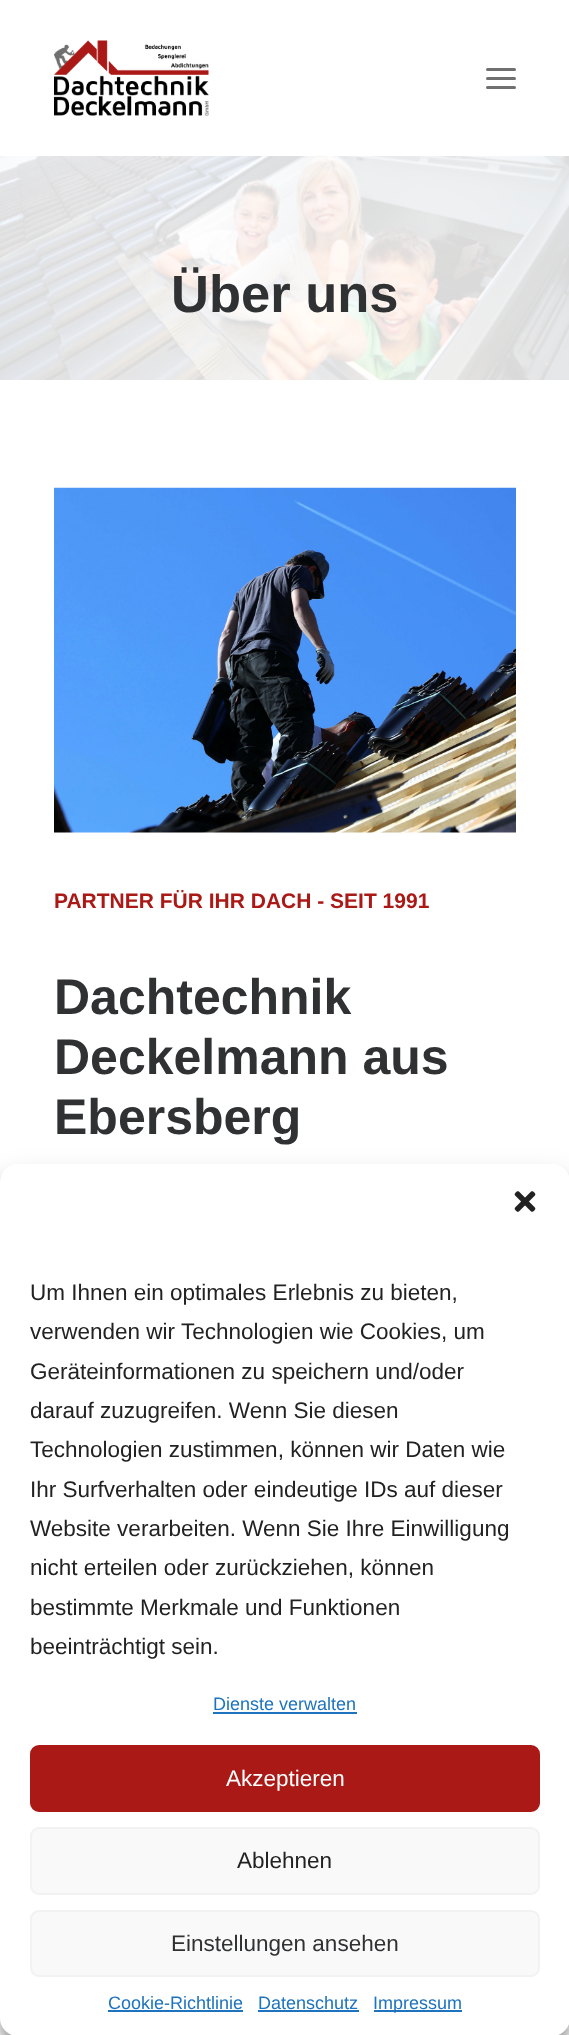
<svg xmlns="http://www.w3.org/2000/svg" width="569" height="2035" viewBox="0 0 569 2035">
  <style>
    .t1 { font: bold 52.5px Liberation Sans; fill: #303133; }
    .t2 { font: bold 21px Liberation Sans; fill: #ab1917; }
    .t3 { font: bold 50px Liberation Sans; fill: #303133; }
    .t4 { font: 22.5px Liberation Sans; fill: #222; }
    .t5 { font: 18px Liberation Sans; fill: #1e73be; }
    .t6 { font: 22.5px Liberation Sans; fill: #fff; }
    .t7 { font: 22.5px Liberation Sans; fill: #303133; }
  </style>
  <rect width="100%" height="100%" fill="#fff"/>
  <image x="54" y="40" width="155" height="76" href="images/1.png"/>
  <rect x="486" y="77" width="30" height="3" rx="1.5" fill="#707070"/>
  <rect x="486" y="68" width="30" height="3" rx="1.5" fill="#707070"/>
  <rect x="486" y="86" width="30" height="3" rx="1.5" fill="#707070"/>
  <image x="0" y="156" width="569" height="224" href="images/2.png"/>
  <text x="171" y="312" class="t1">Über uns</text>
  <image x="54" y="487" width="462" height="346" href="images/3.png"/>
  <text x="54" y="908" class="t2">PARTNER FÜR IHR DACH - SEIT 1991</text>
  <text x="54" y="1014" class="t3">Dachtechnik</text>
  <text x="54" y="1074" class="t3">Deckelmann aus</text>
  <text x="54" y="1134" class="t3">Ebersberg</text>
  <rect x="0" y="1173" width="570" height="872" rx="18" fill="#0000003b" filter="blur(4.5px)"/>
  <rect x="0" y="1179" width="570" height="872" rx="18" fill="#00000030" filter="blur(15px)"/>
  <rect x="0" y="1164" width="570" height="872" rx="18" fill="#fff"/>
  <image x="514" y="1191" width="22" height="21" href="images/4.png"/>
  <text x="30" y="1300" class="t4">Um Ihnen ein optimales Erlebnis zu bieten,</text>
  <text x="30" y="1339" class="t4">verwenden wir Technologien wie Cookies, um</text>
  <text x="30" y="1379" class="t4">Geräteinformationen zu speichern und/oder</text>
  <text x="30" y="1418" class="t4">darauf zuzugreifen. Wenn Sie diesen</text>
  <text x="30" y="1457" class="t4">Technologien zustimmen, können wir Daten wie</text>
  <text x="30" y="1497" class="t4">Ihr Surfverhalten oder eindeutige IDs auf dieser</text>
  <text x="30" y="1536" class="t4">Website verarbeiten. Wenn Sie Ihre Einwilligung</text>
  <text x="30" y="1575" class="t4">nicht erteilen oder zurückziehen, können</text>
  <text x="30" y="1615" class="t4">bestimmte Merkmale und Funktionen</text>
  <text x="30" y="1654" class="t4">beeinträchtigt sein.</text>
  <text x="213" y="1710" class="t5">Dienste verwalten</text>
  <rect x="213" y="1712" width="144" height="2" fill="#1e73be"/>
  <rect x="31" y="1746" width="508" height="65" rx="8" fill="#ab1917" stroke="#ab1917" stroke-width="2"/>
  <text x="226" y="1786" class="t6">Akzeptieren</text>
  <rect x="31" y="1828" width="508" height="66" rx="8" fill="#f9f9f9" stroke="#f2f2f2" stroke-width="2"/>
  <text x="237" y="1868" class="t4">Ablehnen</text>
  <rect x="31" y="1911" width="508" height="65" rx="8" fill="#f9f9f9" stroke="#f2f2f2" stroke-width="2"/>
  <text x="171" y="1951" class="t7">Einstellungen ansehen</text>
  <text x="108" y="2009" class="t5">Cookie-Richtlinie</text>
  <rect x="108" y="2010" width="135" height="2" fill="#1e73be"/>
  <text x="258" y="2009" class="t5">Datenschutz</text>
  <rect x="258" y="2010" width="101" height="2" fill="#1e73be"/>
  <rect x="374" y="2010" width="88" height="2" fill="#1e73be"/>
  <text x="373" y="2009" class="t5">Impressum</text>
</svg>
